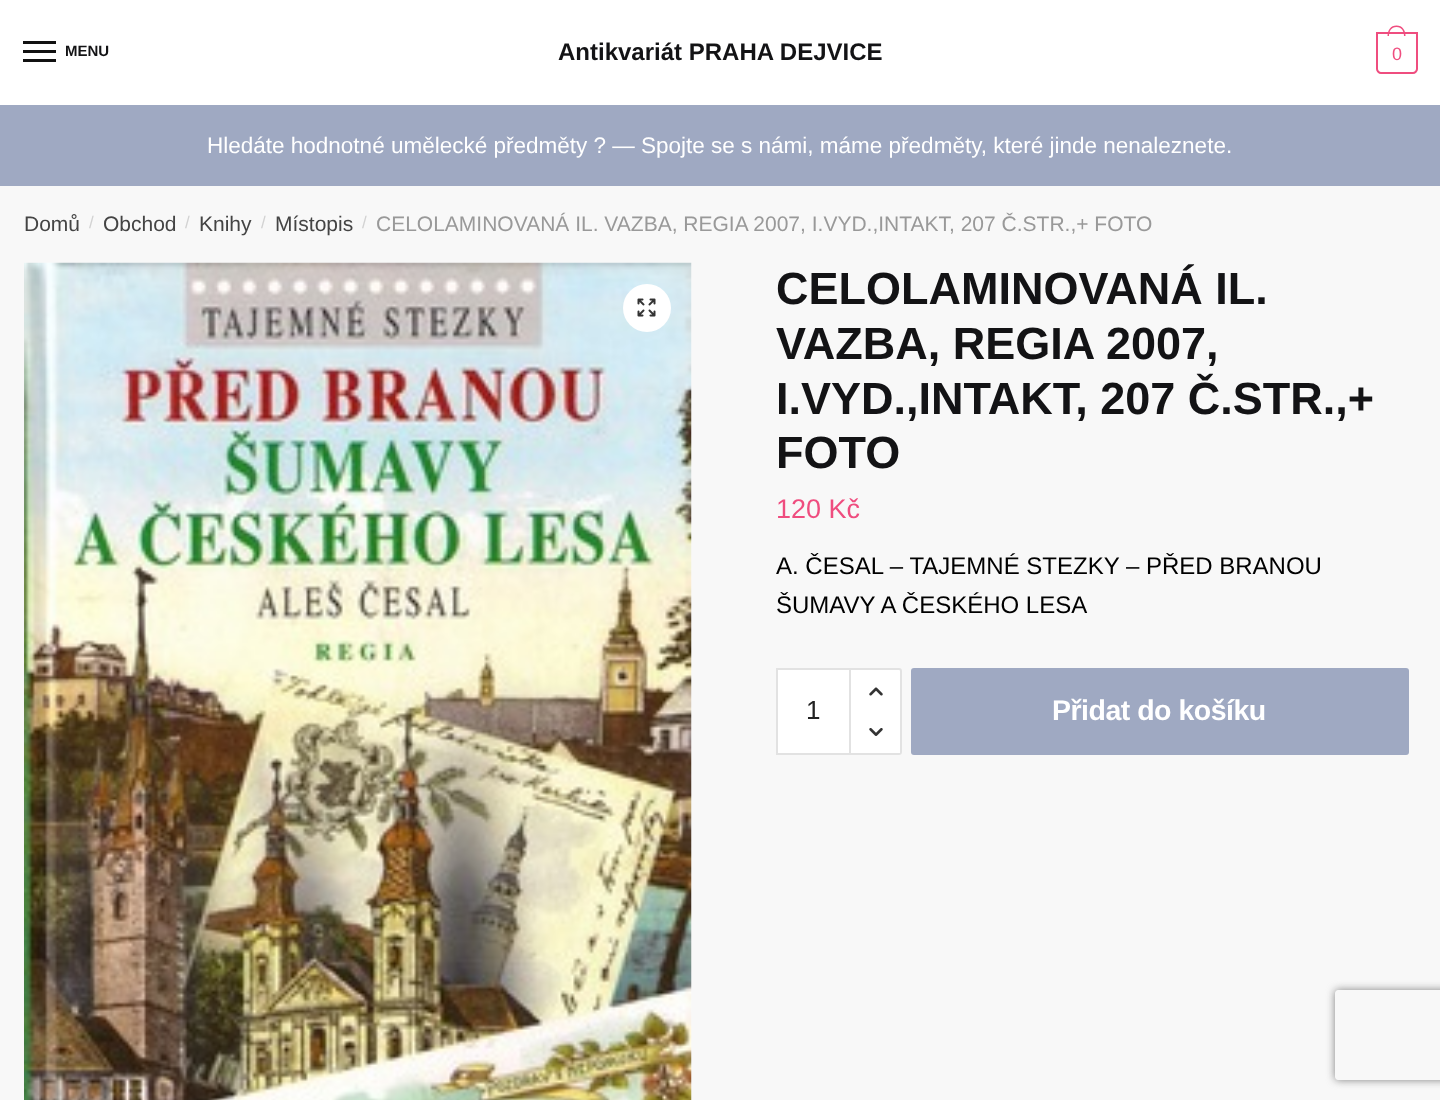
<svg xmlns="http://www.w3.org/2000/svg" width="1440" height="1100" viewBox="0 0 1440 1100">
  <style>
    .t1 { font: bold 15px Liberation Sans; fill: #131315; }
    .t2 { font: bold 24px Liberation Sans; fill: #131315; }
    .t3 { font: 18px Liberation Sans; letter-spacing: -1px; fill: #ef4d7f; }
    .t4 { font: 22.5px Liberation Sans; fill: #fff; }
    .t5 { font: 21px Liberation Sans; fill: #444; }
    .t6 { font: 17px Liberation Sans; fill: #d2d2d2; }
    .t7 { font: 21px Liberation Sans; fill: #999; }
    .t8 { font: bold 45px Liberation Sans; fill: #131315; }
    .t9 { font: 27px Liberation Sans; fill: #ef4d7f; }
    .t10 { font: 24px Liberation Sans; fill: #000; }
    .t11 { font: 26px Liberation Sans; fill: #222; }
    .t12 { font: bold 28.5px Liberation Sans; letter-spacing: -0.5px; fill: #fff; }
  </style>
  <defs>
    <clipPath id="clip1"><path d="M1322 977H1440V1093H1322ZM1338 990H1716C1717.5 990 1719 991.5 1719 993V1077C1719 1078.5 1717.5 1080 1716 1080H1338C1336.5 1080 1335 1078.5 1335 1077V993C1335 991.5 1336.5 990 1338 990Z" clip-rule="evenodd"/></clipPath>
  </defs>
  <rect width="100%" height="100%" fill="#fff"/>
  <rect x="23" y="41" width="33" height="3" fill="#111"/>
  <rect x="23" y="50" width="33" height="3" fill="#111"/>
  <text x="65" y="56" class="t1">MENU</text>
  <rect x="23" y="59" width="33" height="3" fill="#111"/>
  <text x="558" y="60" class="t2">Antikvariát PRAHA DEJVICE</text>
  <path d="M1377 33H1417V69C1417 71 1415 73 1413 73H1381C1379 73 1377 71 1377 69Z" fill="none" stroke="#ef4d7f" stroke-width="2"/>
  <path d="M1396.5 25.5C1402.5 25.5 1405.5 30.5 1405.5 36H1387.5C1387.5 30.5 1390.5 25.5 1396.5 25.5ZM1396.5 27C1402 27 1404 31.5 1404 36H1389C1389 31.5 1391 27 1396.5 27Z" fill="#ef4d7f" fill-rule="evenodd"/>
  <text x="1392" y="60" class="t3">0</text>
  <rect x="0" y="105" width="1440" height="81" fill="#9fa9c2"/>
  <text x="207" y="153" class="t4">Hledáte hodnotné umělecké předměty ? — Spojte se s námi, máme předměty, které jinde nenaleznete.</text>
  <rect x="0" y="186" width="1440" height="914" fill="#f8f8f8"/>
  <text x="24" y="231" class="t5">Domů</text>
  <text x="89" y="228" class="t6">/</text>
  <text x="103" y="231" class="t5">Obchod</text>
  <text x="185" y="228" class="t6">/</text>
  <text x="199" y="231" class="t5">Knihy</text>
  <text x="261" y="228" class="t6">/</text>
  <text x="275" y="231" class="t5">Místopis</text>
  <text x="362" y="228" class="t6">/</text>
  <text x="376" y="231" class="t7">CELOLAMINOVANÁ IL. VAZBA, REGIA 2007, I.VYD.,INTAKT, 207 Č.STR.,+ FOTO</text>
  <image x="24" y="262" width="668" height="838" href="images/1.png"/>
  <circle cx="647" cy="308" r="24" fill="#fff"/>
  <image x="637" y="298" width="19" height="19" href="images/2.png"/>
  <text x="776" y="304" class="t8">CELOLAMINOVANÁ IL.</text>
  <text x="776" y="359" class="t8">VAZBA, REGIA 2007,</text>
  <text x="776" y="414" class="t8">I.VYD.,INTAKT, 207 Č.STR.,+</text>
  <text x="776" y="468" class="t8">FOTO</text>
  <text x="776" y="518" class="t9">120 Kč</text>
  <text x="776" y="574" class="t10">A. ČESAL – TAJEMNÉ STEZKY – PŘED BRANOU</text>
  <text x="776" y="613" class="t10">ŠUMAVY A ČESKÉHO LESA</text>
  <rect x="777" y="669" width="73" height="85" fill="#fff" stroke="#e2e2e2" stroke-width="2"/>
  <text x="806" y="719" class="t11">1</text>
  <path d="M850 669H899C900 669 901 670 901 671V752C901 753 900 754 899 754H850Z" fill="#fff" stroke="#e2e2e2" stroke-width="2"/>
  <image x="869" y="687" width="14" height="9" href="images/3.png"/>
  <rect x="899" y="752" width="1" height="1" fill="#fff"/>
  <image x="869" y="728" width="14" height="8" href="images/4.png"/>
  <rect x="911" y="668" width="498" height="87" rx="3" fill="#9fa9c2"/>
  <text x="1052" y="720" class="t12">Přidat do košíku</text>
  <g clip-path="url(#clip1)">
    <rect x="1335" y="990" width="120" height="90" rx="3" fill="#808080" filter="blur(4px)"/>
  </g>
</svg>
